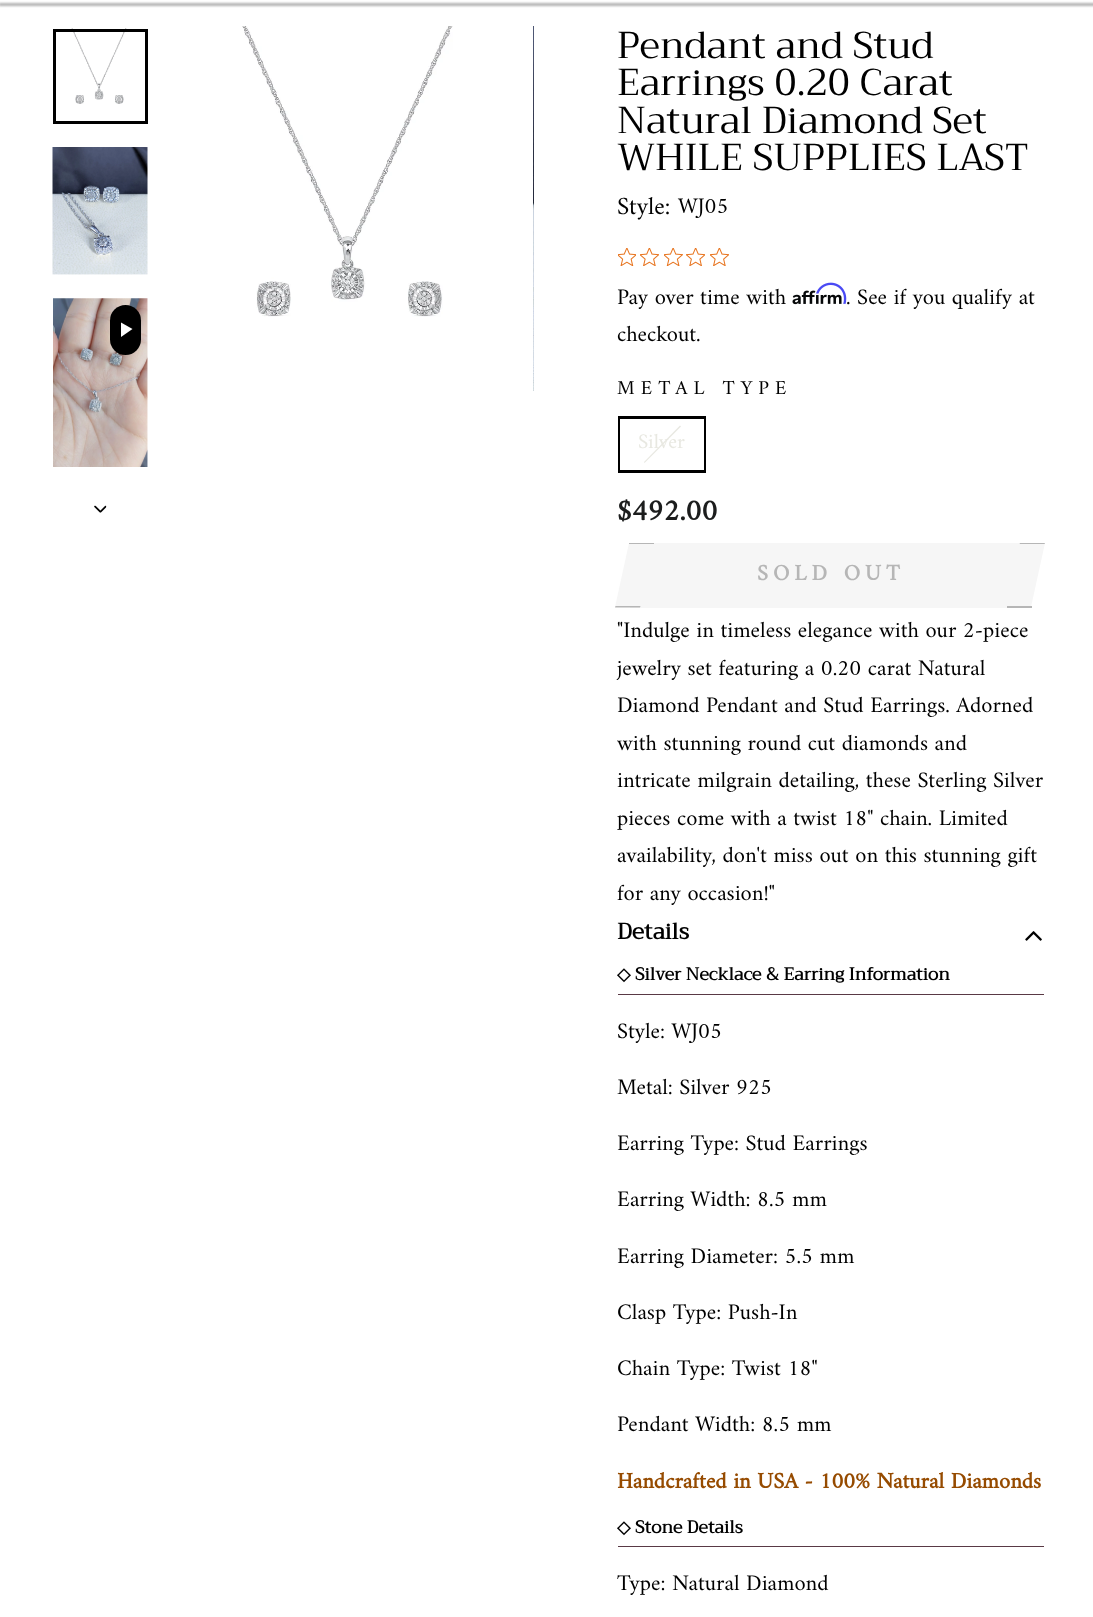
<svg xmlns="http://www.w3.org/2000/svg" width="1093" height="1617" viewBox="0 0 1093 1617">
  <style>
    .t1 { font: 37.5px Trirong; fill: #000; }
    .t2 { font: 25px Amiri; fill: #000; }
    .t3 { font: 22.5px Amiri; fill: #000; }
    .t4 { font: 20px Amiri; letter-spacing: 6px; fill: #000; }
    .t5 { font: 21px Amiri; fill: #e8e8e1; }
    .t6 { font: bold 30px Amiri; fill: #1c1d1d; }
    .t7 { font: bold 22.5px Amiri; letter-spacing: 5px; fill: #b6b6b6; }
    .t8 { font: bold 22.5px Trirong; fill: #000; }
    .t9 { font: bold 17.5px DejaVu Sans; fill: #000; }
    .t10 { font: bold 17.5px Trirong; fill: #000; }
    .t11 { font: bold 22.5px Amiri; fill: #964b00; }
  </style>
  <rect width="100%" height="100%" fill="#fff"/>
  <rect x="-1" y="3" width="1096" height="3" fill="#0000004d" filter="blur(1px)"/>
  <image x="71" y="28" width="56" height="76" href="images/1.png"/>
  <rect x="54.5" y="30.5" width="92" height="92" fill="none" stroke="#000" stroke-width="3"/>
  <image x="52" y="147" width="96" height="128" href="images/2.png"/>
  <image x="53" y="298" width="95" height="169" href="images/3.png"/>
  <rect x="110" y="305" width="31" height="50" rx="15.5" fill="#000"/>
  <path d="M121 322.5V337L132.5 329Z" fill="#fff"/>
  <image x="94" y="505" width="13" height="8" href="images/4.png"/>
  <image x="242" y="26" width="211" height="291" href="images/5.png"/>
  <image x="533" y="26" width="1" height="365" href="images/6.png"/>
  <text x="617" y="58" class="t1">Pendant and Stud</text>
  <text x="617" y="95" class="t1">Earrings 0.20 Carat</text>
  <text x="617" y="133" class="t1">Natural Diamond Set</text>
  <text x="617" y="170" class="t1">WHILE SUPPLIES LAST</text>
  <text x="617" y="214" class="t2">Style:</text>
  <text x="678" y="213" class="t3">WJ05</text>
  <image x="618" y="248" width="18" height="18" href="images/7.png"/>
  <image x="640" y="248" width="19" height="18" href="images/8.png"/>
  <image x="664" y="248" width="19" height="18" href="images/9.png"/>
  <image x="686" y="248" width="19" height="18" href="images/10.png"/>
  <image x="710" y="248" width="19" height="18" href="images/8.png"/>
  <text x="617" y="304" class="t3">Pay over time with</text>
  <image x="792" y="290" width="50" height="15" href="images/12.png"/>
  <image x="816" y="282" width="31" height="22" href="images/11.png"/>
  <text x="846" y="304" class="t3">. See if you qualify at</text>
  <text x="617" y="341" class="t3">checkout.</text>
  <text x="617" y="394" class="t4">METAL TYPE</text>
  <rect x="619.5" y="417.5" width="85" height="54" fill="none" stroke="#000" stroke-width="3"/>
  <rect x="620" y="419" width="84" height="51" fill="#fff"/>
  <path d="M680 425.5L681 426.5L644.5 463L644 462Z" fill="#e8e8e1"/>
  <text x="638" y="448" class="t5">Silver</text>
  <text x="617" y="520" class="t6">$492.00</text>
  <rect x="630" y="543" width="390" height="65" fill="#f6f6f6"/>
  <path d="M629 543H654L640 607H615Z" fill="#f6f6f6"/>
  <rect x="629" y="543" width="25" height="1" fill="#b6b6b6"/>
  <path d="M615.5 606H640.5L640 607.5H615Z" fill="#b6b6b6"/>
  <text x="757" y="580" class="t7">SOLD OUT</text>
  <path d="M1020 543H1045L1031 607H1006Z" fill="#f6f6f6"/>
  <path d="M1020 543H1045L1044.5 544H1019.5Z" fill="#b6b6b6"/>
  <rect x="1007" y="606" width="25" height="2" fill="#b6b6b6"/>
  <text x="617" y="637" class="t3">"Indulge in timeless elegance with our 2-piece</text>
  <text x="617" y="675" class="t3">jewelry set featuring a 0.20 carat Natural</text>
  <text x="617" y="712" class="t3">Diamond Pendant and Stud Earrings. Adorned</text>
  <text x="617" y="750" class="t3">with stunning round cut diamonds and</text>
  <text x="617" y="787" class="t3">intricate milgrain detailing, these Sterling Silver</text>
  <text x="617" y="825" class="t3">pieces come with a twist 18" chain. Limited</text>
  <text x="617" y="862" class="t3">availability, don't miss out on this stunning gift</text>
  <text x="617" y="900" class="t3">for any occasion!"</text>
  <text x="617" y="939" class="t8">Details</text>
  <image x="1025" y="931" width="17" height="10" href="images/13.png"/>
  <rect x="618" y="994" width="426" height="1" fill="#593945"/>
  <text x="617" y="980" class="t9">◇</text>
  <text x="635" y="980" class="t10">Silver Necklace &amp; Earring Information</text>
  <text x="617" y="1038" class="t3">Style: WJ05</text>
  <text x="617" y="1094" class="t3">Metal: Silver 925</text>
  <text x="617" y="1150" class="t3">Earring Type: Stud Earrings</text>
  <text x="617" y="1206" class="t3">Earring Width: 8.5 mm</text>
  <text x="617" y="1263" class="t3">Earring Diameter: 5.5 mm</text>
  <text x="617" y="1319" class="t3">Clasp Type: Push-In</text>
  <text x="617" y="1375" class="t3">Chain Type: Twist 18"</text>
  <text x="617" y="1431" class="t3">Pendant Width: 8.5 mm</text>
  <text x="617" y="1488" class="t11">Handcrafted in USA - 100% Natural Diamonds</text>
  <rect x="618" y="1546" width="426" height="1" fill="#593945"/>
  <text x="617" y="1533" class="t9">◇</text>
  <text x="635" y="1533" class="t10">Stone Details</text>
  <text x="617" y="1590" class="t3">Type: Natural Diamond</text>
</svg>
